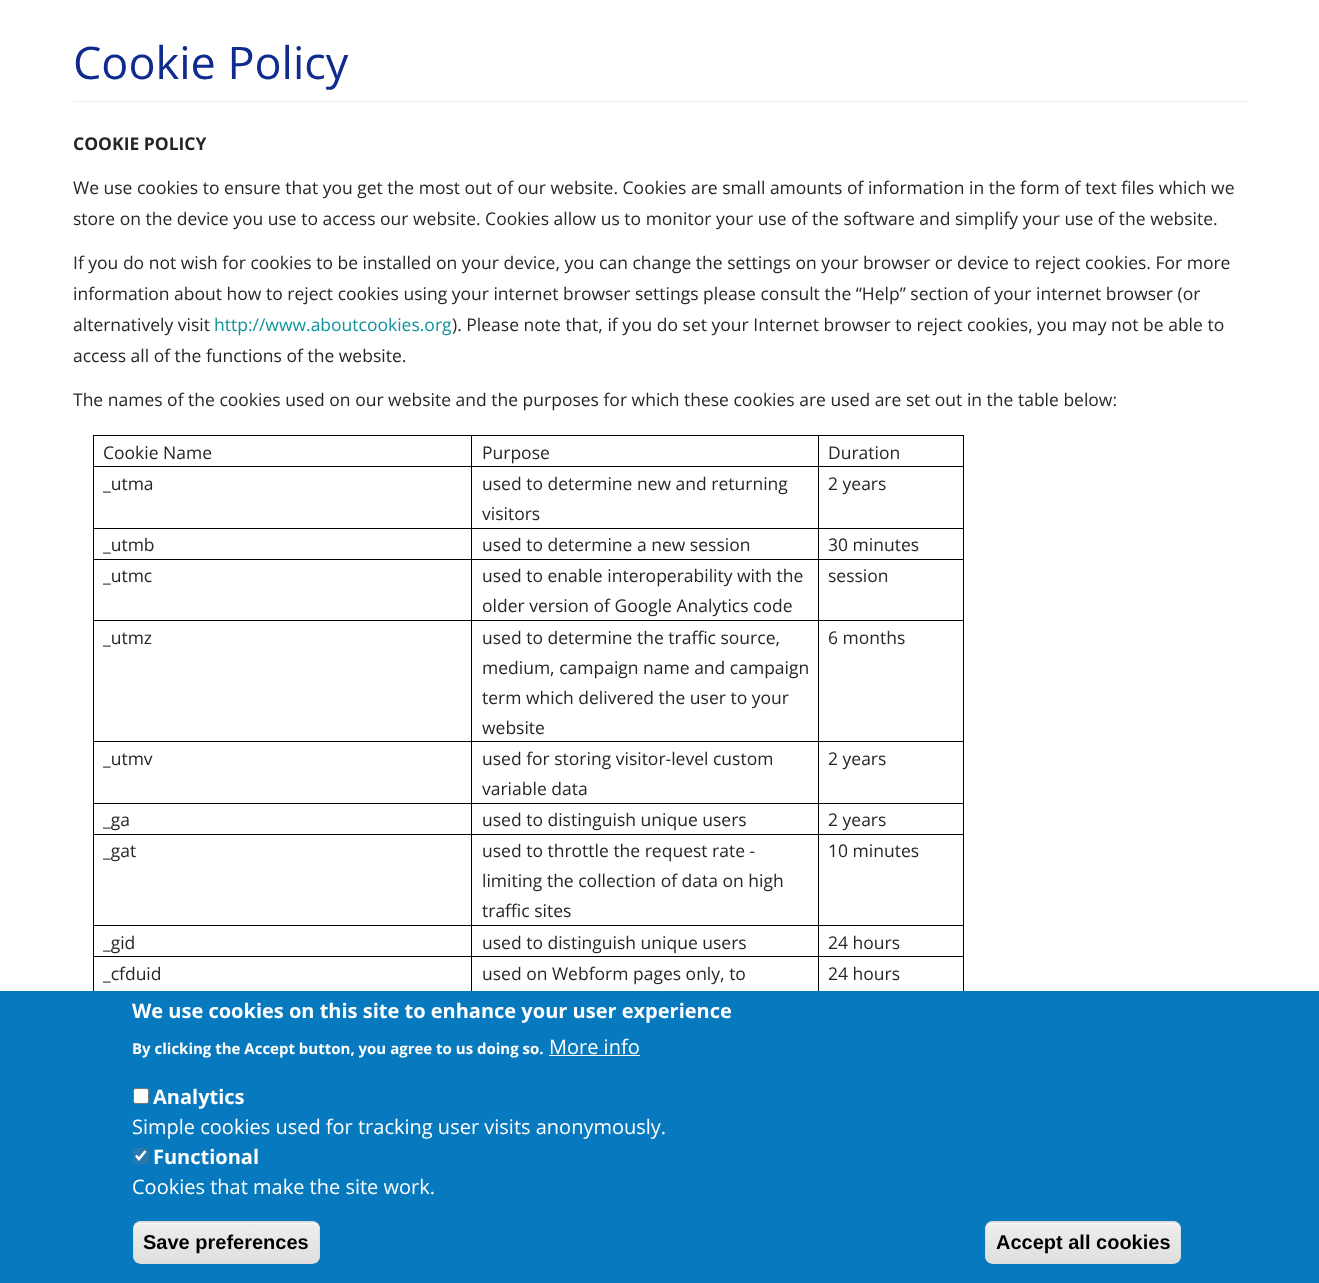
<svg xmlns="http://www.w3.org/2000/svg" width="1319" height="1283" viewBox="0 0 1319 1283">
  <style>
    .t1 { font: 45px Open Sans; fill: #0e2b8d; }
    .t2 { font: bold 17.5px Open Sans; fill: #262626; }
    .t3 { font: 17.5px Open Sans; fill: #262626; }
    .t4 { font: 17.5px Open Sans; fill: #10929c; }
    .t5 { font: bold 20px Open Sans; fill: #fff; }
    .t6 { font: bold 15px Open Sans; fill: #fff; }
    .t7 { font: 20px Open Sans; fill: #fff; }
    .t8 { font: bold 20px Liberation Sans; fill: #000; }
  </style>
  <defs>
    <clipPath id="clip1"><rect x="133" y="1221" width="187" height="43" rx="8"/></clipPath>
    <linearGradient id="g1" gradientUnits="userSpaceOnUse" x1="226" y1="1183" x2="226" y2="1223"><stop offset="0.05" stop-color="#ededed"/><stop offset="1" stop-color="#dfdfdf"/></linearGradient>
    <linearGradient id="g2" gradientUnits="userSpaceOnUse" x1="226" y1="1223" x2="226" y2="1263"><stop offset="0.05" stop-color="#ededed"/><stop offset="1" stop-color="#dfdfdf"/></linearGradient>
    <clipPath id="clip2"><rect x="985" y="1221" width="196" height="43" rx="8"/></clipPath>
    <linearGradient id="g3" gradientUnits="userSpaceOnUse" x1="1083" y1="1183" x2="1083" y2="1223"><stop offset="0.05" stop-color="#ededed"/><stop offset="1" stop-color="#dfdfdf"/></linearGradient>
    <linearGradient id="g4" gradientUnits="userSpaceOnUse" x1="1083" y1="1223" x2="1083" y2="1263"><stop offset="0.05" stop-color="#ededed"/><stop offset="1" stop-color="#dfdfdf"/></linearGradient>
  </defs>
  <rect width="100%" height="100%" fill="#fff"/>
  <rect x="73" y="101" width="1175" height="1" fill="#eee"/>
  <text x="73" y="79" class="t1">Cookie Policy</text>
  <text x="73" y="150" class="t2">COOKIE POLICY</text>
  <text x="73" y="194" class="t3">We use cookies to ensure that you get the most out of our website. Cookies are small amounts of information in the form of text files which we</text>
  <text x="73" y="225" class="t3">store on the device you use to access our website. Cookies allow us to monitor your use of the software and simplify your use of the website.</text>
  <text x="73" y="269" class="t3">If you do not wish for cookies to be installed on your device, you can change the settings on your browser or device to reject cookies. For more</text>
  <text x="73" y="300" class="t3">information about how to reject cookies using your internet browser settings please consult the “Help” section of your internet browser (or</text>
  <text x="73" y="331" class="t3">alternatively visit</text>
  <text x="214" y="331" class="t4">http://www.aboutcookies.org</text>
  <text x="452" y="331" class="t3">). Please note that, if you do set your Internet browser to reject cookies, you may not be able to</text>
  <text x="73" y="362" class="t3">access all of the functions of the website.</text>
  <text x="73" y="406" class="t3">The names of the cookies used on our website and the purposes for which these cookies are used are set out in the table below:</text>
  <rect x="93" y="435" width="871" height="1" fill="#000"/>
  <rect x="963" y="466" width="1" height="525" fill="#000"/>
  <rect x="963" y="435" width="1" height="33" fill="#000"/>
  <rect x="818" y="956" width="1" height="35" fill="#000"/>
  <rect x="818" y="956" width="146" height="1" fill="#000"/>
  <rect x="818" y="925" width="1" height="33" fill="#000"/>
  <rect x="818" y="925" width="146" height="1" fill="#000"/>
  <rect x="818" y="834" width="1" height="92" fill="#000"/>
  <rect x="818" y="834" width="146" height="1" fill="#000"/>
  <rect x="818" y="803" width="1" height="32" fill="#000"/>
  <rect x="818" y="803" width="146" height="1" fill="#000"/>
  <rect x="818" y="741" width="1" height="63" fill="#000"/>
  <rect x="818" y="741" width="146" height="1" fill="#000"/>
  <rect x="818" y="620" width="1" height="123" fill="#000"/>
  <rect x="818" y="620" width="146" height="1" fill="#000"/>
  <rect x="818" y="559" width="1" height="62" fill="#000"/>
  <rect x="818" y="559" width="146" height="1" fill="#000"/>
  <rect x="818" y="528" width="1" height="32" fill="#000"/>
  <rect x="818" y="528" width="146" height="1" fill="#000"/>
  <rect x="818" y="466" width="1" height="63" fill="#000"/>
  <rect x="818" y="466" width="146" height="1" fill="#000"/>
  <rect x="818" y="435" width="1" height="33" fill="#000"/>
  <rect x="471" y="956" width="1" height="35" fill="#000"/>
  <rect x="471" y="956" width="348" height="1" fill="#000"/>
  <rect x="471" y="925" width="1" height="33" fill="#000"/>
  <rect x="471" y="925" width="348" height="1" fill="#000"/>
  <rect x="471" y="834" width="1" height="92" fill="#000"/>
  <rect x="471" y="834" width="348" height="1" fill="#000"/>
  <rect x="471" y="803" width="1" height="32" fill="#000"/>
  <rect x="471" y="803" width="348" height="1" fill="#000"/>
  <rect x="471" y="741" width="1" height="63" fill="#000"/>
  <rect x="471" y="741" width="348" height="1" fill="#000"/>
  <rect x="471" y="620" width="1" height="123" fill="#000"/>
  <rect x="471" y="620" width="348" height="1" fill="#000"/>
  <rect x="471" y="559" width="1" height="62" fill="#000"/>
  <rect x="471" y="559" width="348" height="1" fill="#000"/>
  <rect x="471" y="528" width="1" height="32" fill="#000"/>
  <rect x="471" y="528" width="348" height="1" fill="#000"/>
  <rect x="471" y="466" width="1" height="63" fill="#000"/>
  <rect x="471" y="466" width="348" height="1" fill="#000"/>
  <rect x="471" y="435" width="1" height="33" fill="#000"/>
  <rect x="93" y="956" width="1" height="35" fill="#000"/>
  <rect x="93" y="956" width="380" height="1" fill="#000"/>
  <rect x="93" y="925" width="1" height="33" fill="#000"/>
  <rect x="93" y="925" width="380" height="1" fill="#000"/>
  <rect x="93" y="834" width="1" height="92" fill="#000"/>
  <rect x="93" y="834" width="380" height="1" fill="#000"/>
  <rect x="93" y="803" width="1" height="32" fill="#000"/>
  <rect x="93" y="803" width="380" height="1" fill="#000"/>
  <rect x="93" y="741" width="1" height="63" fill="#000"/>
  <rect x="93" y="741" width="380" height="1" fill="#000"/>
  <rect x="93" y="620" width="1" height="123" fill="#000"/>
  <rect x="93" y="620" width="380" height="1" fill="#000"/>
  <rect x="93" y="559" width="1" height="62" fill="#000"/>
  <rect x="93" y="559" width="380" height="1" fill="#000"/>
  <rect x="93" y="528" width="1" height="32" fill="#000"/>
  <rect x="93" y="528" width="380" height="1" fill="#000"/>
  <rect x="93" y="466" width="1" height="63" fill="#000"/>
  <rect x="93" y="466" width="380" height="1" fill="#000"/>
  <rect x="93" y="435" width="1" height="33" fill="#000"/>
  <text x="103" y="459" class="t3">Cookie Name</text>
  <text x="482" y="459" class="t3">Purpose</text>
  <text x="828" y="459" class="t3">Duration</text>
  <text x="103" y="490" class="t3">_utma</text>
  <text x="482" y="490" class="t3">used to determine new and returning</text>
  <text x="482" y="520" class="t3">visitors</text>
  <text x="828" y="490" class="t3">2 years</text>
  <text x="103" y="551" class="t3">_utmb</text>
  <text x="482" y="551" class="t3">used to determine a new session</text>
  <text x="828" y="551" class="t3">30 minutes</text>
  <text x="103" y="582" class="t3">_utmc</text>
  <text x="482" y="582" class="t3">used to enable interoperability with the</text>
  <text x="482" y="612" class="t3">older version of Google Analytics code</text>
  <text x="828" y="582" class="t3">session</text>
  <text x="103" y="644" class="t3">_utmz</text>
  <text x="482" y="644" class="t3">used to determine the traffic source,</text>
  <text x="482" y="674" class="t3">medium, campaign name and campaign</text>
  <text x="482" y="704" class="t3">term which delivered the user to your</text>
  <text x="482" y="734" class="t3">website</text>
  <text x="828" y="644" class="t3">6 months</text>
  <text x="103" y="765" class="t3">_utmv</text>
  <text x="482" y="765" class="t3">used for storing visitor-level custom</text>
  <text x="482" y="795" class="t3">variable data</text>
  <text x="828" y="765" class="t3">2 years</text>
  <text x="103" y="826" class="t3">_ga</text>
  <text x="482" y="826" class="t3">used to distinguish unique users</text>
  <text x="828" y="826" class="t3">2 years</text>
  <text x="103" y="857" class="t3">_gat</text>
  <text x="482" y="857" class="t3">used to throttle the request rate -</text>
  <text x="482" y="887" class="t3">limiting the collection of data on high</text>
  <text x="482" y="917" class="t3">traffic sites</text>
  <text x="828" y="857" class="t3">10 minutes</text>
  <text x="103" y="949" class="t3">_gid</text>
  <text x="482" y="949" class="t3">used to distinguish unique users</text>
  <text x="828" y="949" class="t3">24 hours</text>
  <text x="103" y="980" class="t3">_cfduid</text>
  <text x="482" y="980" class="t3">used on Webform pages only, to</text>
  <text x="828" y="980" class="t3">24 hours</text>
  <rect x="0" y="991" width="1319" height="292" fill="#0779bf"/>
  <text x="132" y="1018" class="t5">We use cookies on this site to enhance your user experience</text>
  <text x="132" y="1054" class="t6">By clicking the Accept button, you agree to us doing so.</text>
  <text x="549" y="1054" class="t7">More info</text>
  <rect x="549" y="1055" width="91" height="1" fill="#fff"/>
  <rect x="133.5" y="1088.5" width="15" height="15" rx="2" fill="#fff" stroke="#767676"/>
  <text x="153" y="1104" class="t5">Analytics</text>
  <text x="132" y="1134" class="t7">Simple cookies used for tracking user visits anonymously.</text>
  <rect x="133" y="1148" width="16" height="16" rx="2.5" fill="#2878a9"/>
  <path d="M136 1155.5L139 1159L145.5 1151" fill="none" stroke="#fff" stroke-width="2.6"/>
  <text x="153" y="1164" class="t5">Functional</text>
  <text x="132" y="1194" class="t7">Cookies that make the site work.</text>
  <g clip-path="url(#clip1)">
    <rect x="133" y="1221" width="187" height="2" fill="url(#g1)"/>
    <rect x="133" y="1223" width="187" height="40" fill="url(#g2)"/>
  </g>
  <path d="M140 1224H312C316 1224 319 1227 319 1230V1229C319 1226 316 1223 313 1223H140C137 1223 134 1226 134 1229V1230C134 1227 137 1224 140 1224Z" fill="#fff"/>
  <rect x="133.5" y="1221.5" width="186" height="42" rx="7.5" fill="none" stroke="#dcdcdc"/>
  <text x="143" y="1249" class="t8">Save preferences</text>
  <g clip-path="url(#clip2)">
    <rect x="985" y="1221" width="196" height="2" fill="url(#g3)"/>
    <rect x="985" y="1223" width="196" height="40" fill="url(#g4)"/>
  </g>
  <path d="M992 1224H1174C1177 1224 1180 1227 1180 1230V1229C1180 1226 1177 1223 1174 1223H992C989 1223 986 1226 986 1229V1230C986 1227 989 1224 992 1224Z" fill="#fff"/>
  <rect x="985.5" y="1221.5" width="195" height="42" rx="7.5" fill="none" stroke="#dcdcdc"/>
  <text x="996" y="1249" class="t8">Accept all cookies</text>
</svg>
